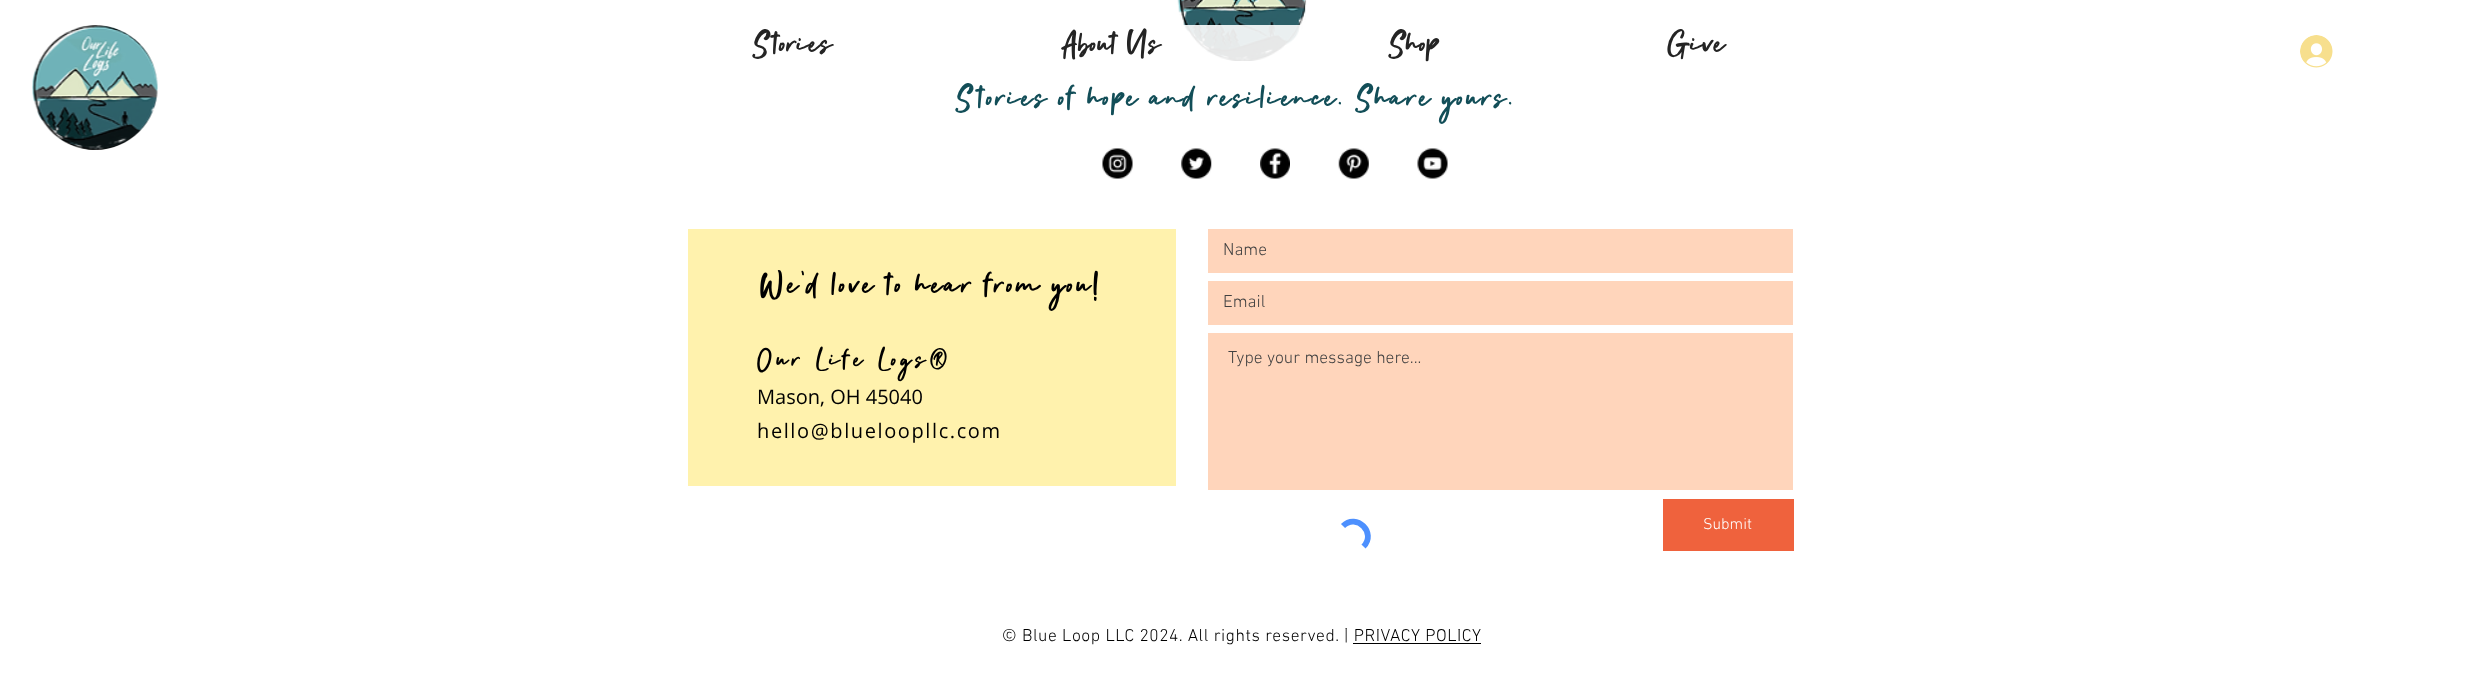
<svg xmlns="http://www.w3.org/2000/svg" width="2478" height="686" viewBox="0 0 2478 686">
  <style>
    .t1 { font: 37.5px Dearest; fill: #242424; }
    .t2 { font: 37.5px Dearest; letter-spacing: 1.9px; fill: #124e58; }
    .t3 { font: 37.5px Dearest; letter-spacing: 2.25px; fill: #000; }
    .t4 { font: 31.25px Dearest; letter-spacing: 4px; fill: #000; }
    .t5 { font: 20px Open Sans; fill: #000; }
    .t6 { font: 20px Open Sans; letter-spacing: 1.6px; fill: #000; }
    .t7 { font: 300 17.5px 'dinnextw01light'; fill: #414141; }
    .t8 { font: 300 16px 'dinnextw01light'; fill: #fff; }
    .t9 { font: 300 17.5px 'dinnextw01light'; letter-spacing: 0.53px; fill: #000; }
  </style>
  <rect width="100%" height="100%" fill="#fff"/>
  <image x="32" y="25" width="126" height="125" href="images/1.png"/>
  <image x="1177" y="0" width="130" height="61" href="images/3.png"/>
  <rect x="1183" y="25" width="118" height="36" fill="#ffffffe6"/>
  <text x="752" y="54" class="t1">Stories</text>
  <text x="1061" y="54" class="t1">About Us</text>
  <text x="1388" y="54" class="t1">Shop</text>
  <text x="1667" y="54" class="t1">Give</text>
  <image x="2300" y="35" width="33" height="33" href="images/2.png"/>
  <text x="955" y="108" class="t2">Stories of hope and resilience. Share yours.</text>
  <image x="1102" y="148" width="31" height="31" href="images/4.png"/>
  <image x="1181" y="148" width="31" height="31" href="images/5.png"/>
  <image x="1260" y="148" width="30" height="31" href="images/6.png"/>
  <image x="1338" y="148" width="31" height="31" href="images/7.png"/>
  <image x="1417" y="148" width="31" height="31" href="images/8.png"/>
  <rect x="688" y="229" width="488" height="257" fill="#fff2ad"/>
  <text x="760" y="295" class="t3">We'd love to hear from you!</text>
  <text x="757" y="368" class="t4">Our Life Logs®</text>
  <text x="757" y="404" class="t5">Mason, OH 45040</text>
  <text x="757" y="438" class="t6">hello@blueloopllc.com</text>
  <rect x="1208" y="229" width="585" height="44" fill="#ffd5bb"/>
  <text x="1223" y="255" class="t7">Name</text>
  <rect x="1208" y="281" width="585" height="44" fill="#ffd5bb"/>
  <text x="1223" y="307" class="t7">Email</text>
  <rect x="1208" y="333" width="585" height="157" fill="#ffd5bb"/>
  <text x="1228" y="363" class="t7">Type your message here...</text>
  <path d="M1343 526C1356.5 512.5 1377 533 1363.5 546.5" fill="none" stroke="#4d90fe" stroke-width="5.8"/>
  <rect x="1663" y="499" width="131" height="52" fill="#ef623d"/>
  <text x="1703" y="529" class="t8">Submit</text>
  <text x="1002" y="641" class="t9">© Blue Loop LLC 2024. All rights reserved. | PRIVACY POLICY</text>
  <rect x="1353" y="643" width="128" height="1" fill="#000"/>
</svg>
